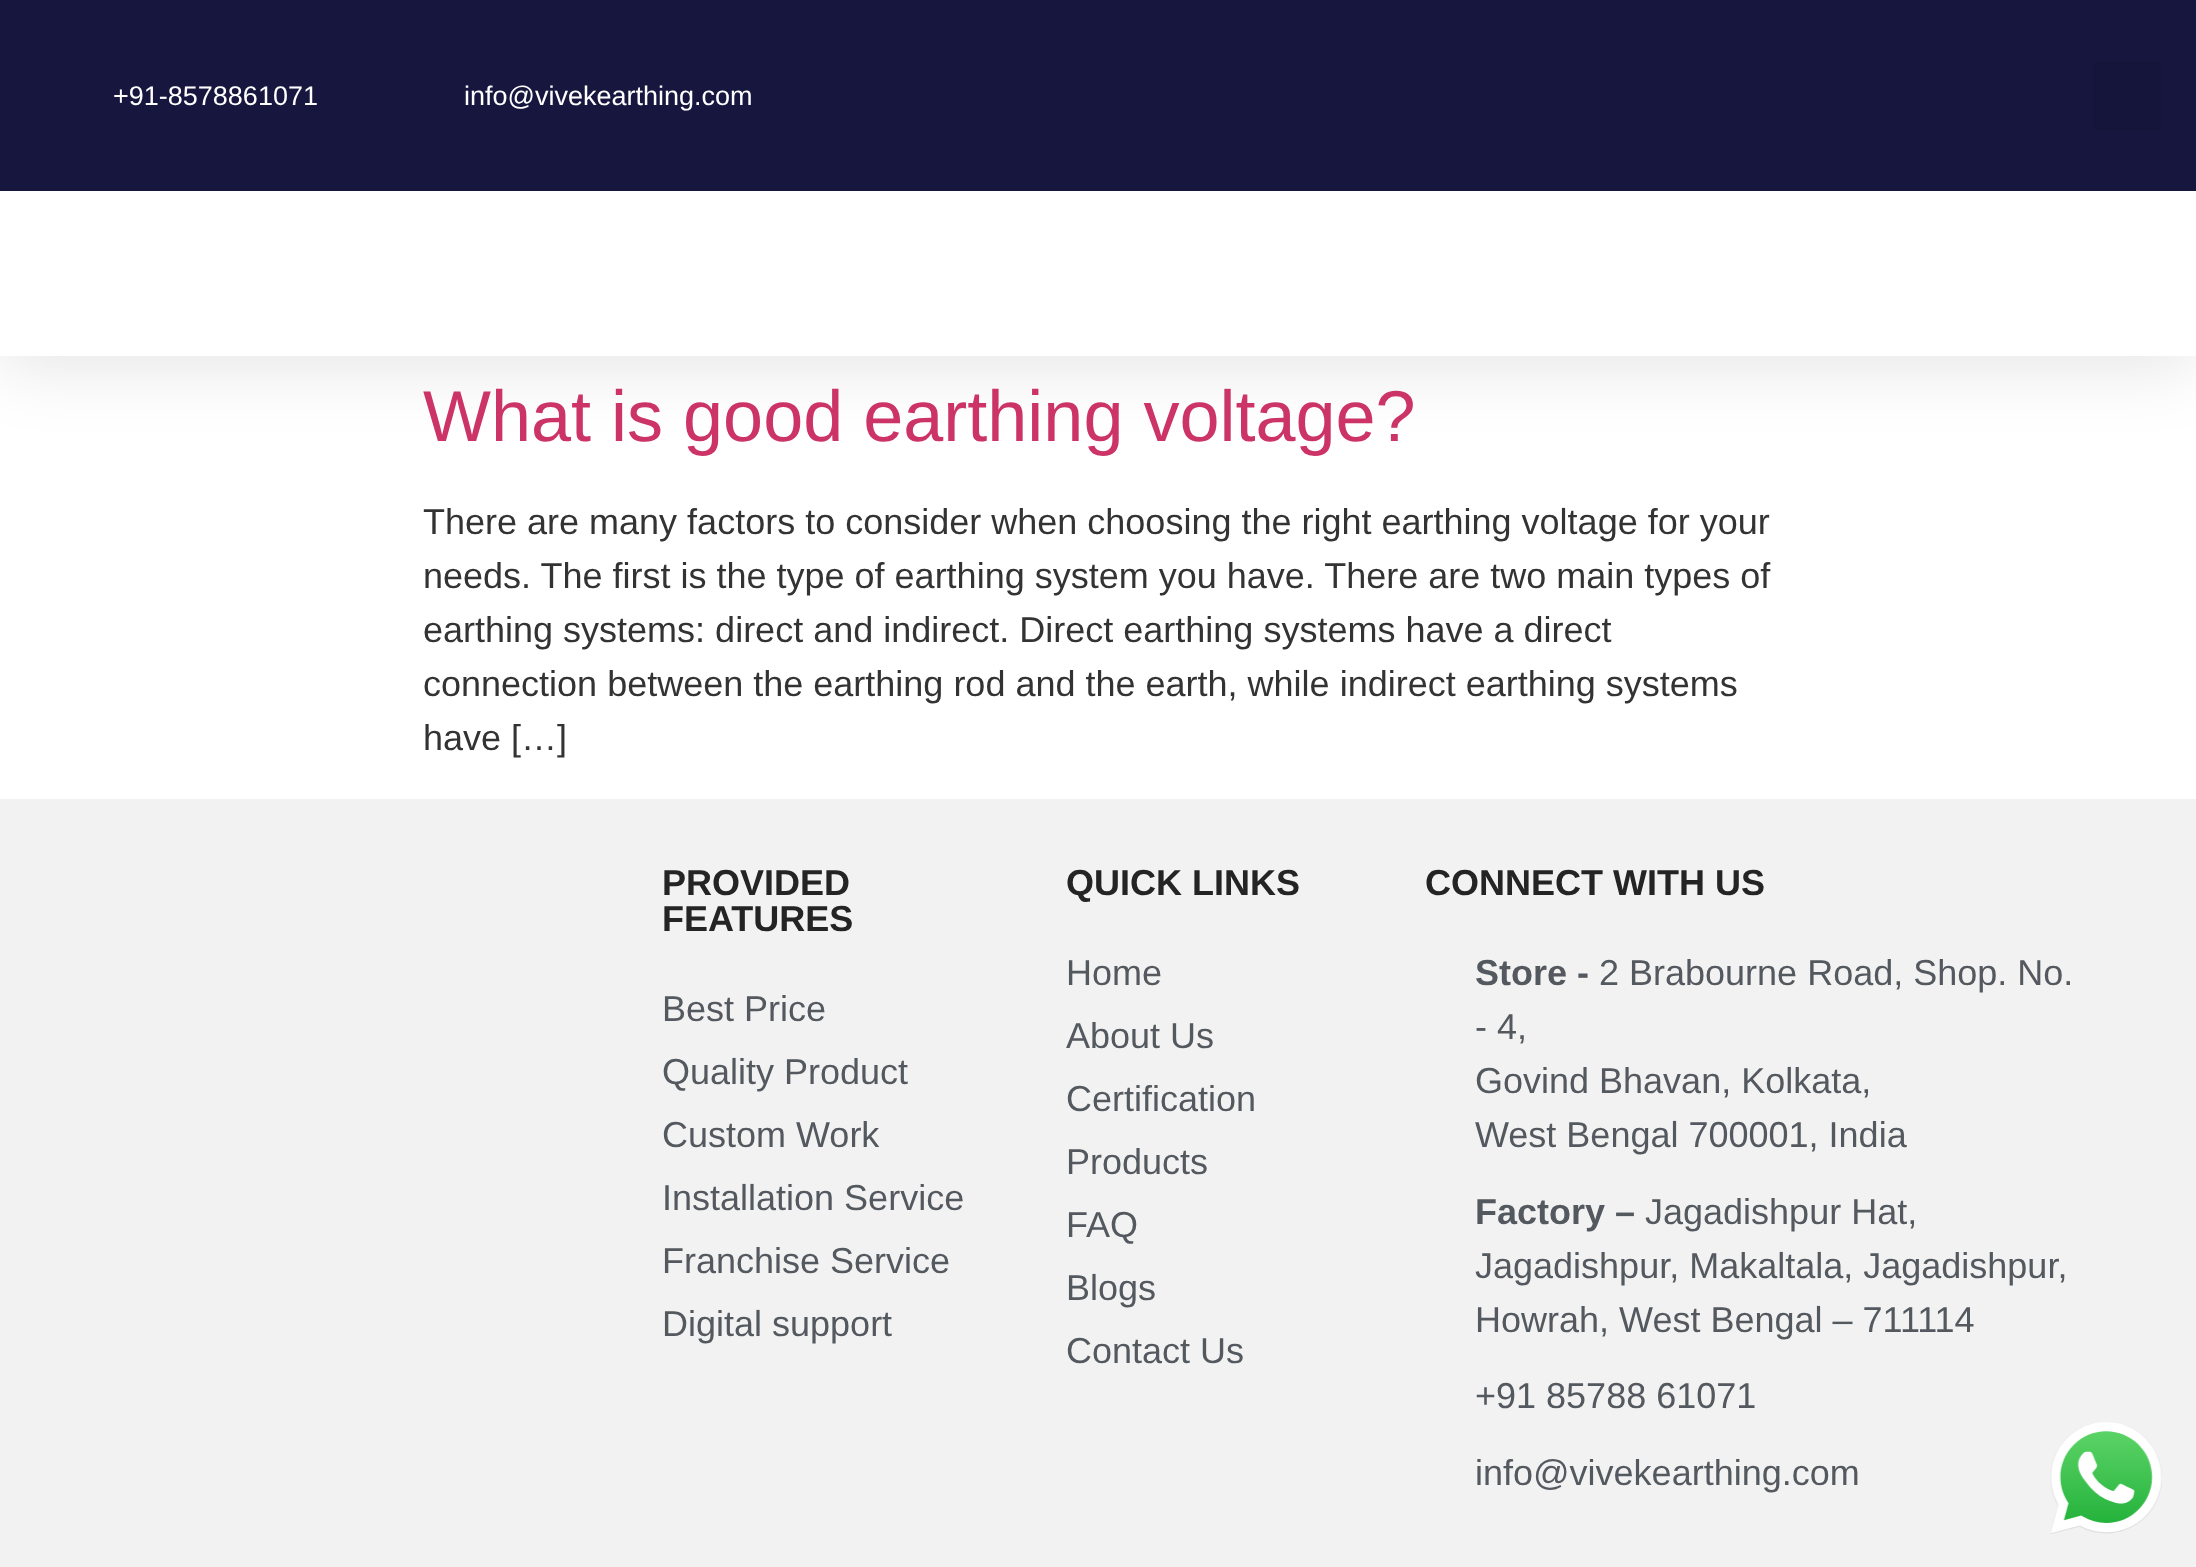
<svg xmlns="http://www.w3.org/2000/svg" width="2196" height="1567" viewBox="0 0 2196 1567">
  <style>
    .t1 { font: 27px Liberation Sans; fill: #fff; }
    .t2 { font: 72px Liberation Sans; fill: #c36; }
    .t3 { font: 36px Liberation Sans; fill: #333; }
    .t4 { font: bold 36px Liberation Sans; fill: #242424; }
    .t5 { font: 36px Liberation Sans; fill: #54595f; }
    .t6 { font: bold 36px Liberation Sans; fill: #54595f; }
  </style>
  <rect width="100%" height="100%" fill="#fff"/>
  <rect x="0" y="11" width="2196" height="356" fill="#0000001a" filter="blur(34px)"/>
  <rect x="0" y="0" width="2196" height="191" fill="#16163f"/>
  <text x="113" y="105" class="t1">+91-8578861071</text>
  <text x="464" y="105" class="t1">info@vivekearthing.com</text>
  <rect x="2093" y="61" width="69" height="70" rx="7" fill="#15153c"/>
  <rect x="0" y="191" width="2196" height="165" fill="#fff"/>
  <text x="423" y="441" class="t2">What is good earthing voltage?</text>
  <text x="423" y="534" class="t3">There are many factors to consider when choosing the right earthing voltage for your</text>
  <text x="423" y="588" class="t3">needs. The first is the type of earthing system you have. There are two main types of</text>
  <text x="423" y="642" class="t3">earthing systems: direct and indirect. Direct earthing systems have a direct</text>
  <text x="423" y="696" class="t3">connection between the earthing rod and the earth, while indirect earthing systems</text>
  <text x="423" y="750" class="t3">have […]</text>
  <rect x="0" y="799" width="2196" height="768" fill="#f2f2f2"/>
  <text x="662" y="895" class="t4">PROVIDED</text>
  <text x="662" y="931" class="t4">FEATURES</text>
  <text x="662" y="1021" class="t5">Best Price</text>
  <text x="662" y="1084" class="t5">Quality Product</text>
  <text x="662" y="1147" class="t5">Custom Work</text>
  <text x="662" y="1210" class="t5">Installation Service</text>
  <text x="662" y="1273" class="t5">Franchise Service</text>
  <text x="662" y="1336" class="t5">Digital support</text>
  <text x="1066" y="895" class="t4">QUICK LINKS</text>
  <text x="1066" y="985" class="t5">Home</text>
  <text x="1066" y="1048" class="t5">About Us</text>
  <text x="1066" y="1111" class="t5">Certification</text>
  <text x="1066" y="1174" class="t5">Products</text>
  <text x="1066" y="1237" class="t5">FAQ</text>
  <text x="1066" y="1300" class="t5">Blogs</text>
  <text x="1066" y="1363" class="t5">Contact Us</text>
  <text x="1425" y="895" class="t4">CONNECT WITH US</text>
  <text x="1475" y="985" class="t6">Store -</text>
  <text x="1599" y="985" class="t5">2 Brabourne Road, Shop. No.</text>
  <text x="1475" y="1039" class="t5">- 4,</text>
  <text x="1475" y="1093" class="t5">Govind Bhavan, Kolkata,</text>
  <text x="1475" y="1147" class="t5">West Bengal 700001, India</text>
  <text x="1475" y="1224" class="t6">Factory –</text>
  <text x="1645" y="1224" class="t5">Jagadishpur Hat,</text>
  <text x="1475" y="1278" class="t5">Jagadishpur, Makaltala, Jagadishpur,</text>
  <text x="1475" y="1332" class="t5">Howrah, West Bengal – 711114</text>
  <text x="1475" y="1408" class="t5">+91 85788 61071</text>
  <text x="1475" y="1485" class="t5">info@vivekearthing.com</text>
  <image x="2050" y="1422" width="112" height="112" href="images/1.png"/>
</svg>
